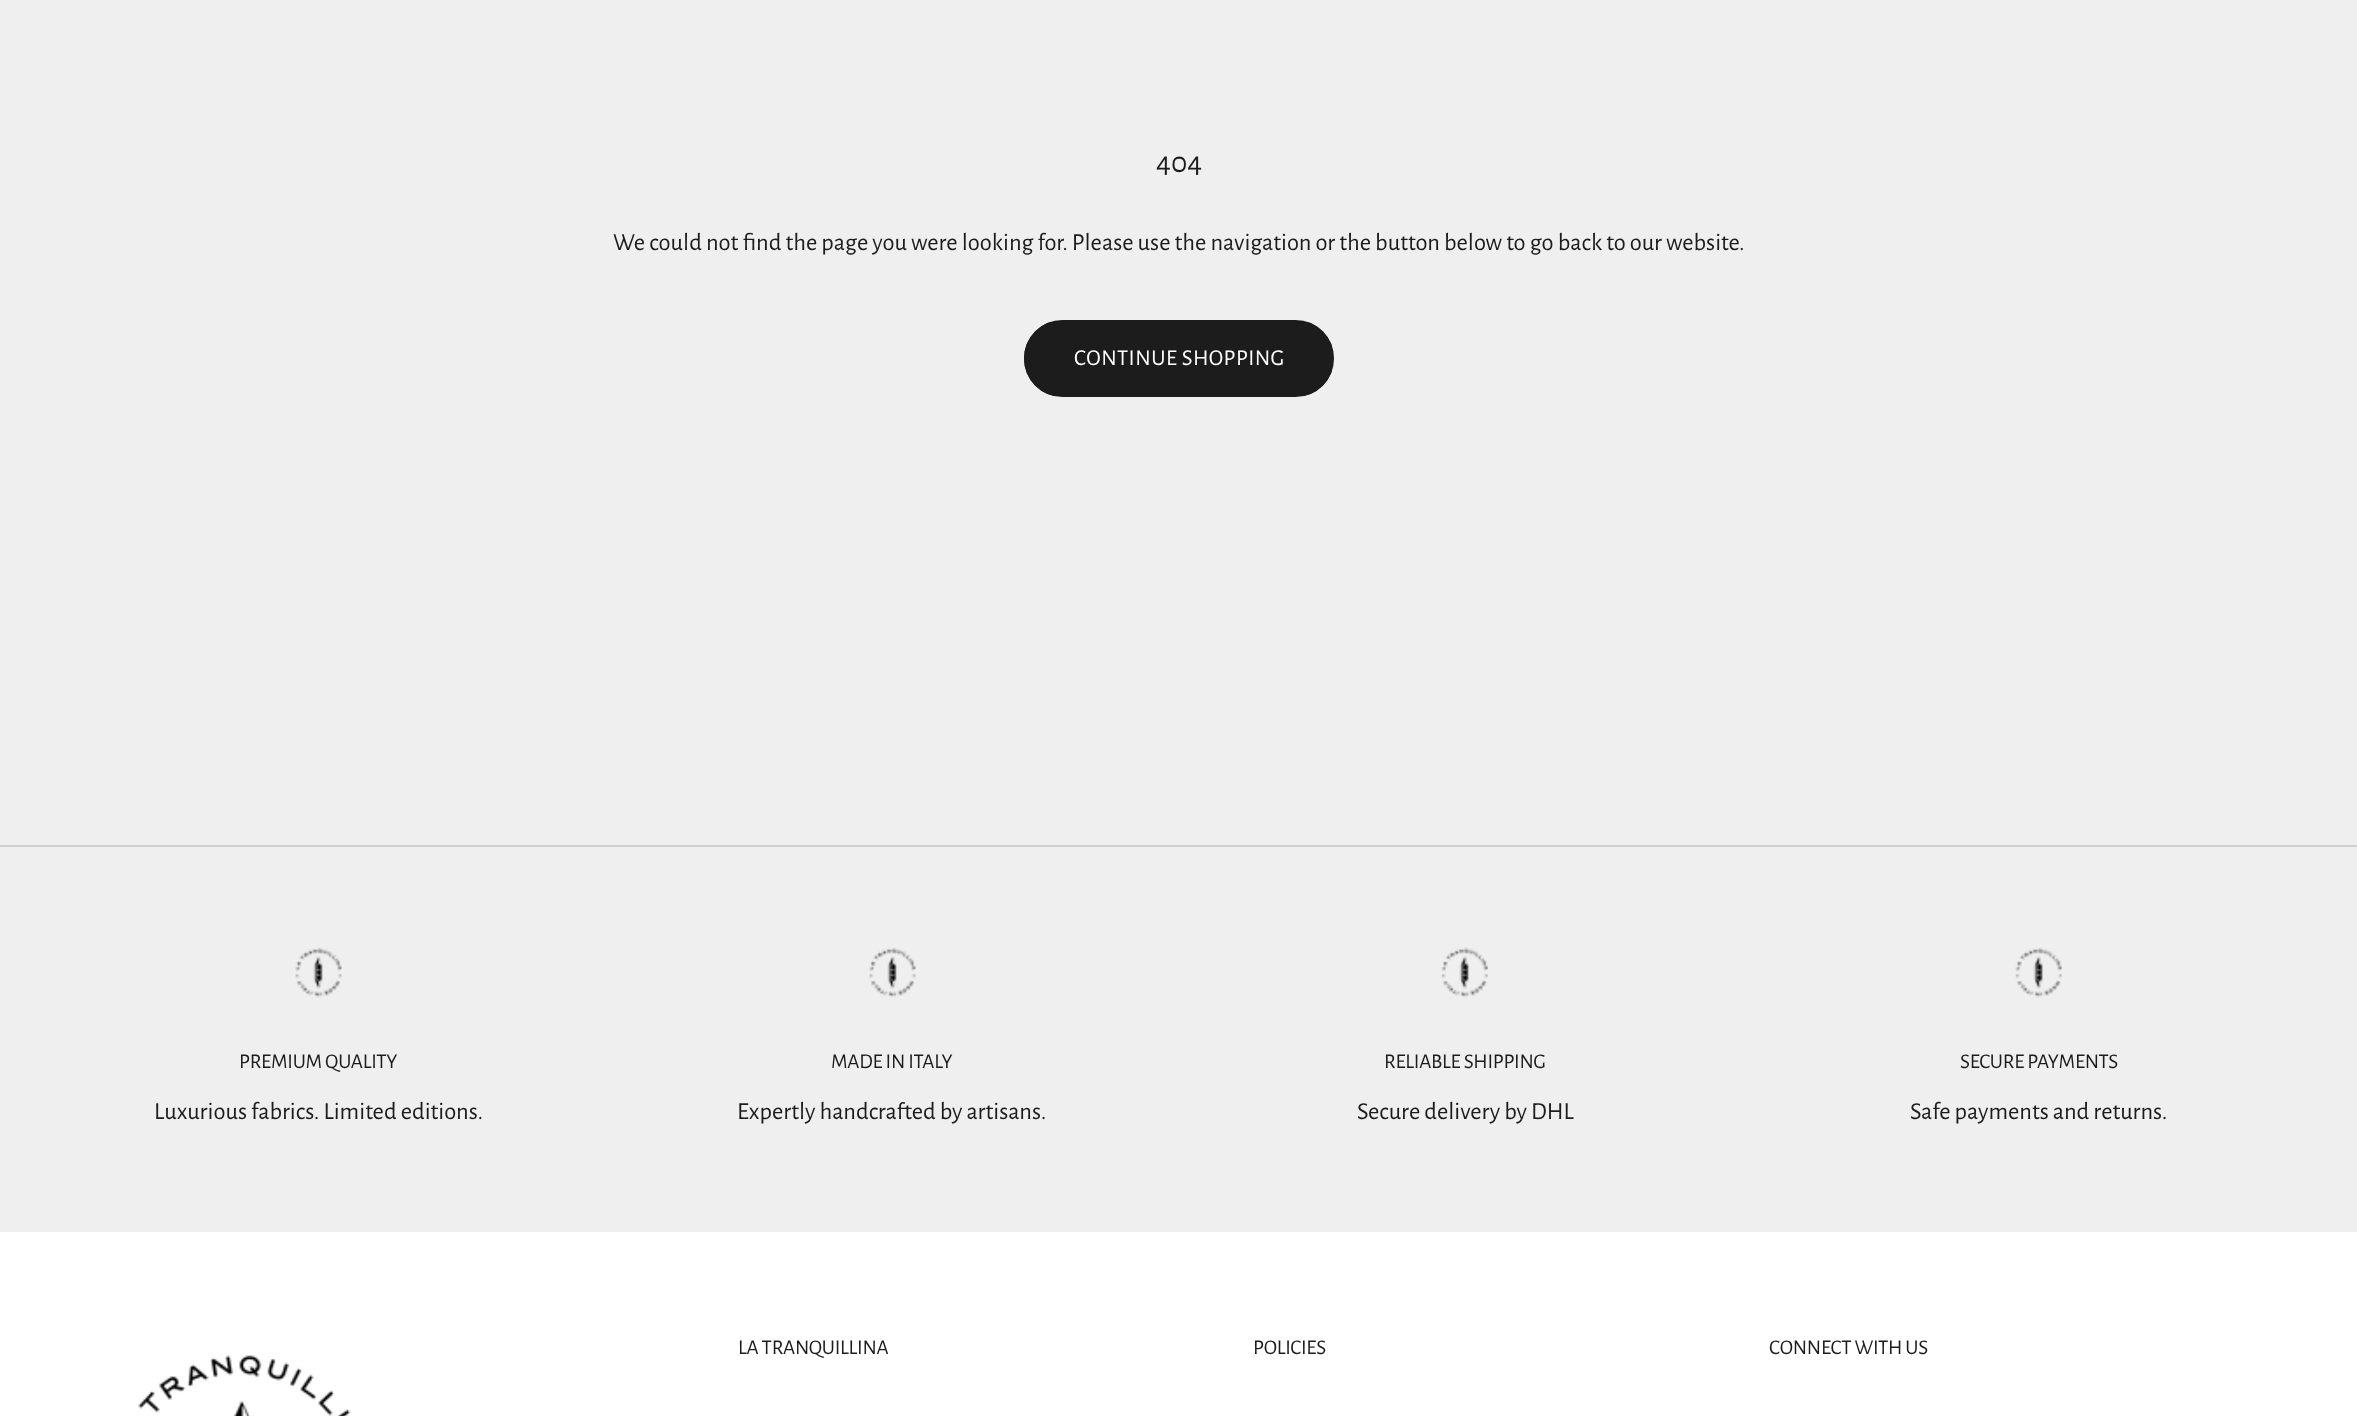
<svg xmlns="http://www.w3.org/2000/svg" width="2357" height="1416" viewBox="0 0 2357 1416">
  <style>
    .t1 { font: 31px Alegreya Sans; fill: #1c1c1c; }
    .t2 { font: 24.5px Alegreya Sans; fill: #1c1c1c; }
    .t3 { font: 22.75px Alegreya Sans; letter-spacing: 0.5px; fill: #fff; }
    .t4 { font: 21px Alegreya Sans; letter-spacing: -0.25px; fill: #1c1c1c; }
  </style>
  <defs>
    <clipPath id="clip1"><rect x="1024" y="320" width="310" height="77" rx="38.5"/></clipPath>
  </defs>
  <rect width="100%" height="100%" fill="#efefef"/>
  <text x="1156" y="172" class="t1">404</text>
  <text x="613" y="250" class="t2">We could not find the page you were looking for. Please use the navigation or the button below to go back to our website.</text>
  <g clip-path="url(#clip1)">
    <rect x="1024" y="322" width="308" height="74" fill="#1c1c1c"/>
  </g>
  <rect x="1025" y="321" width="308" height="75" rx="37.5" fill="none" stroke="#1c1c1c" stroke-width="2"/>
  <text x="1074" y="365" class="t3">CONTINUE SHOPPING</text>
  <rect x="0" y="845" width="2357" height="2" fill="#cfcfcf"/>
  <image x="295" y="947" width="47" height="51" href="images/1.png"/>
  <text x="239" y="1068" class="t4">PREMIUM QUALITY</text>
  <text x="154" y="1119" class="t2">Luxurious fabrics. Limited editions.</text>
  <image x="869" y="947" width="47" height="51" href="images/2.png"/>
  <text x="831" y="1068" class="t4">MADE IN ITALY</text>
  <text x="737" y="1119" class="t2">Expertly handcrafted by artisans.</text>
  <image x="1441" y="947" width="47" height="51" href="images/3.png"/>
  <text x="1384" y="1068" class="t4">RELIABLE SHIPPING</text>
  <text x="1357" y="1119" class="t2">Secure delivery by DHL</text>
  <image x="2015" y="947" width="47" height="51" href="images/4.png"/>
  <text x="1960" y="1068" class="t4">SECURE PAYMENTS</text>
  <text x="1910" y="1119" class="t2">Safe payments and returns.</text>
  <rect x="0" y="1232" width="2357" height="184" fill="#fff"/>
  <text x="738" y="1354" class="t4">LA TRANQUILLINA</text>
  <text x="1253" y="1354" class="t4">POLICIES</text>
  <text x="1769" y="1354" class="t4">CONNECT WITH US</text>
  <image x="138" y="1355" width="213" height="61" href="images/5.png"/>
</svg>
